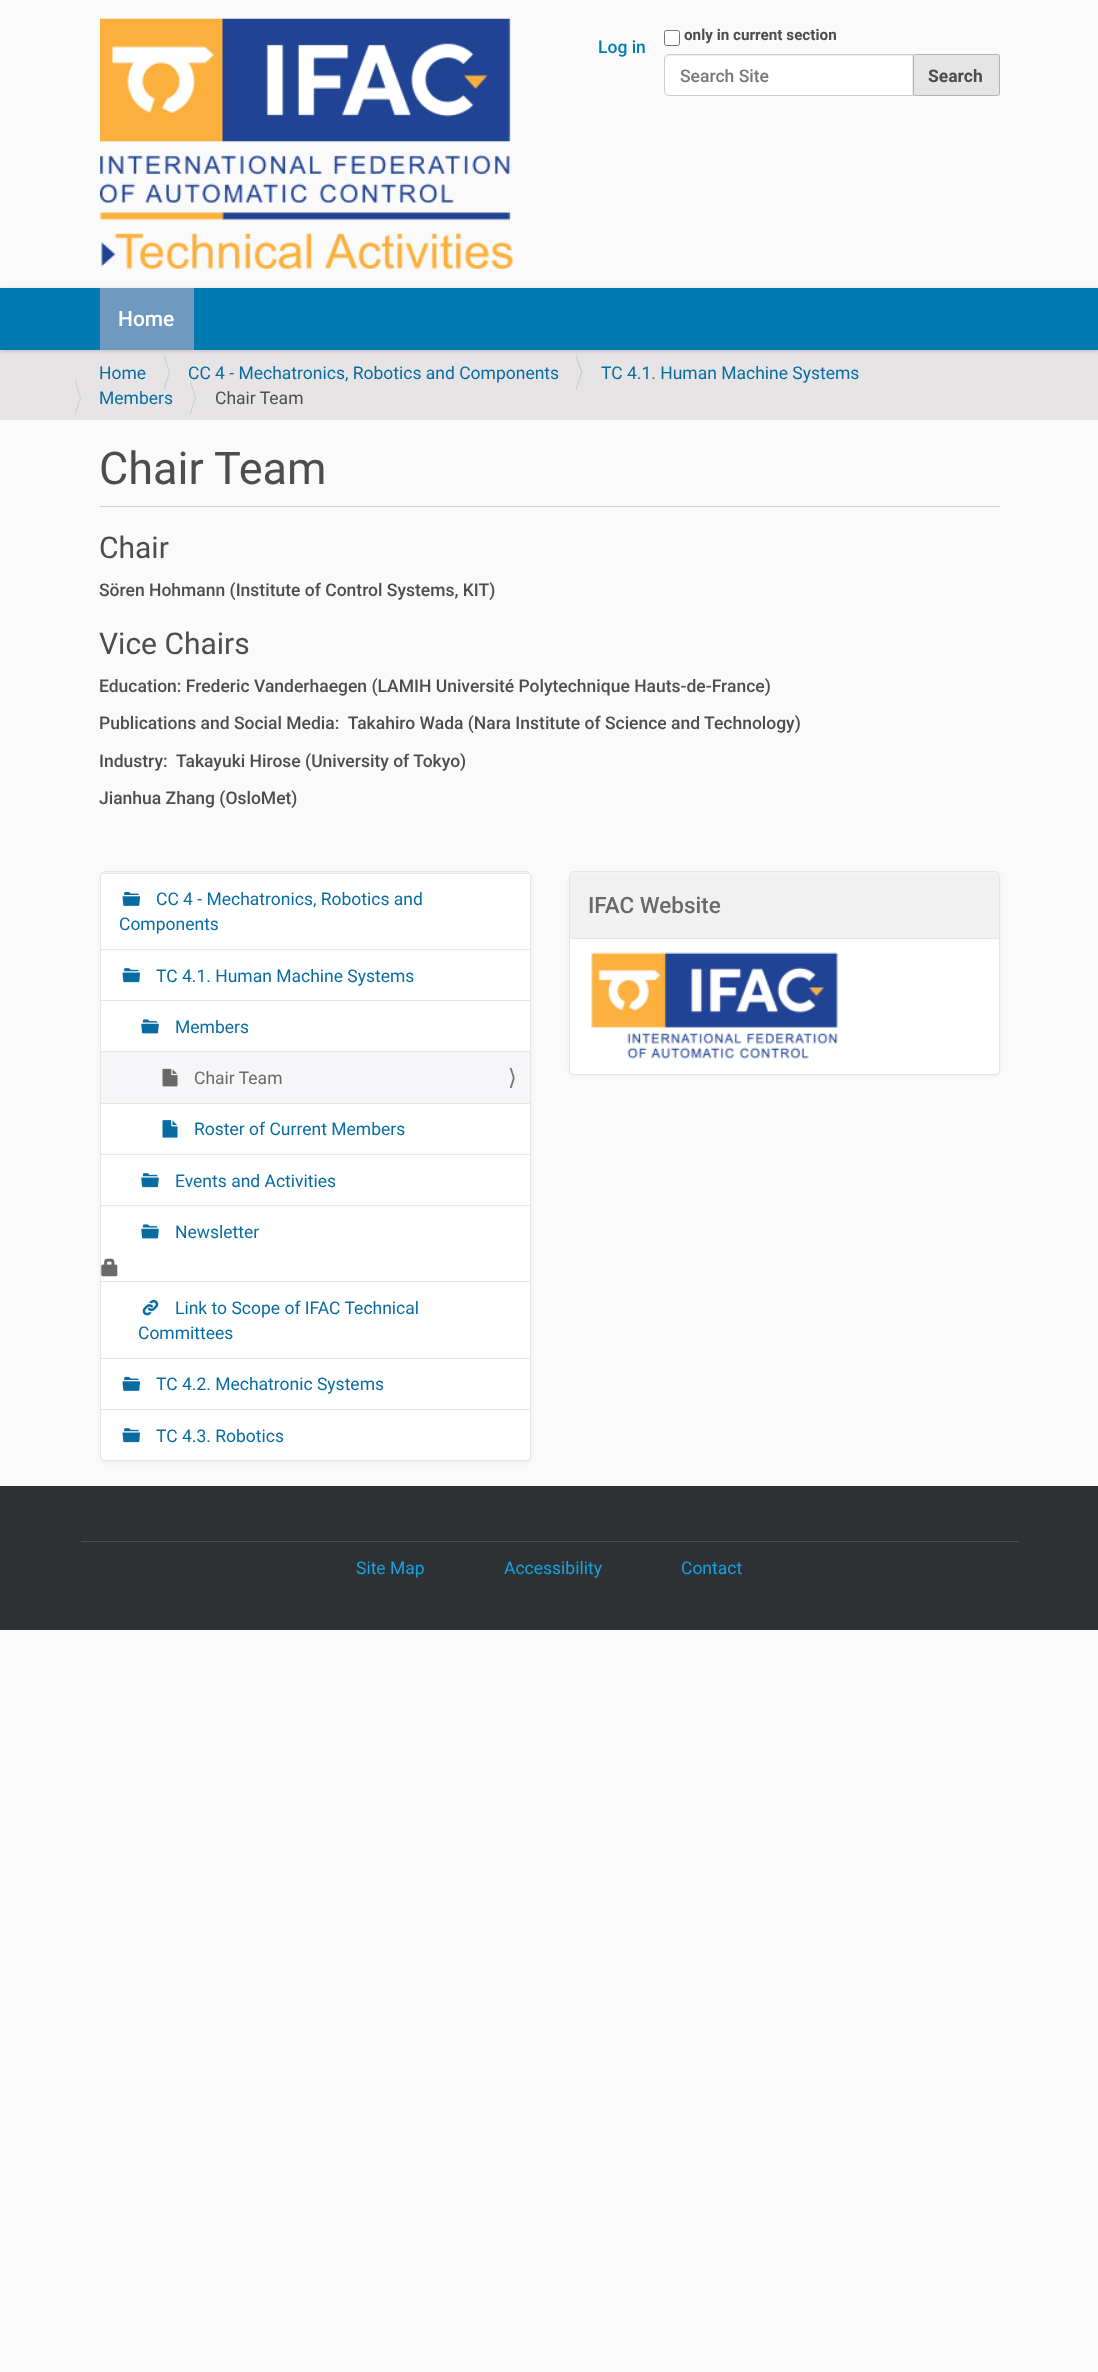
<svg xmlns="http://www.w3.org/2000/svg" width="1098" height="2372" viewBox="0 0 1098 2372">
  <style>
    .t1 { font: 500 17.5px Roboto; fill: #007bb1; }
    .t2 { font: bold 15.25px Roboto; fill: #4d4d4d; }
    .t3 { font: 500 17.5px Roboto; fill: #777; }
    .t4 { font: bold 17.5px Roboto; fill: #4d4d4d; }
    .t5 { font: 500 21px Roboto; fill: #fff; }
    .t6 { font: 17.5px Roboto; fill: #086ca3; }
    .t7 { font: 17.5px Roboto; fill: #4d4d4d; }
    .t8 { font: 45px Roboto; fill: #4d4d4d; }
    .t9 { font: 30px Roboto; fill: #4d4d4d; }
    .t10 { font: 500 17.5px Roboto; fill: #4d4d4d; }
    .t11 { font: 17.5px Roboto; fill: #696969; }
    .t12 { font: 22.5px DejaVu Sans; fill: #777; }
    .t13 { font: 500 22.5px Roboto; fill: #696969; }
    .t14 { font: 17.5px Roboto; fill: #16a1e3; }
  </style>
  <rect width="100%" height="100%" fill="#fafafa"/>
  <image x="100" y="18" width="413" height="251" href="images/1.png"/>
  <text x="598" y="53" class="t1">Log in</text>
  <rect x="664.5" y="30.5" width="15" height="15" rx="2" fill="#fff" stroke="#767676"/>
  <text x="684" y="40" class="t2">only in current section</text>
  <path d="M669 54H914V96H669C666 96 664 94 664 91V59C664 56 666 54 669 54Z" fill="#fff"/>
  <path d="M669 56H912V95H913V55H669C667 55 665 57 665 59V60C665 58 667 56 669 56Z" fill="#ececec"/>
  <path d="M669 54.5H913.5V95.5H669C666.5 95.5 664.5 93.5 664.5 91V59C664.5 56.5 666.5 54.5 669 54.5Z" fill="none" stroke="#ccc"/>
  <text x="680" y="82" class="t3">Search Site</text>
  <rect x="913.5" y="54.5" width="86" height="41" rx="2" fill="#e5e5e5" stroke="#b2b2b2"/>
  <text x="928" y="82" class="t4">Search</text>
  <rect x="0" y="350" width="1098" height="70" fill="#e6e4e4"/>
  <rect x="0" y="289" width="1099" height="62" fill="#0000002b" filter="blur(2px)"/>
  <rect x="0" y="288" width="1098" height="62" fill="#007bb1"/>
  <rect x="100" y="288" width="94" height="62" fill="#7099bf"/>
  <text x="118" y="326" class="t5">Home</text>
  <text x="99" y="379" class="t6">Home</text>
  <path d="M164 391V354L170 372.5Z" fill="#ccc"/>
  <path d="M162.5 391V354L169 372.5Z" fill="#e6e4e4"/>
  <text x="188" y="379" class="t6">CC 4 - Mechatronics, Robotics and Components</text>
  <path d="M576 391V354L582.5 372.5Z" fill="#ccc"/>
  <path d="M575 391V354L581 372.5Z" fill="#e6e4e4"/>
  <text x="601" y="379" class="t6">TC 4.1. Human Machine Systems</text>
  <path d="M75 416V379L81 397.5Z" fill="#ccc"/>
  <path d="M74 416V379L80 397.5Z" fill="#e6e4e4"/>
  <text x="99" y="404" class="t6">Members</text>
  <path d="M190 416V379L196 397.5Z" fill="#ccc"/>
  <path d="M189 416V379L195 397.5Z" fill="#e6e4e4"/>
  <text x="215" y="404" class="t7">Chair Team</text>
  <rect x="100" y="506" width="900" height="1" fill="#ccc"/>
  <text x="99" y="484" class="t8">Chair Team</text>
  <text x="99" y="558" class="t9">Chair</text>
  <text x="99" y="596" class="t10">Sören Hohmann (Institute of Control Systems, KIT)</text>
  <text x="99" y="654" class="t9">Vice Chairs</text>
  <text x="99" y="692" class="t10">Education: Frederic Vanderhaegen (LAMIH Université Polytechnique Hauts-de-France)</text>
  <text x="99" y="729" class="t10" xml:space="preserve">Publications and Social Media:  Takahiro Wada (Nara Institute of Science and Technology)</text>
  <text x="99" y="767" class="t10" xml:space="preserve">Industry:  Takayuki Hirose (University of Tokyo)</text>
  <text x="99" y="804" class="t10">Jianhua Zhang (OsloMet)</text>
  <rect x="100" y="873" width="431" height="590" rx="5" fill="#0000000d" filter="blur(2px)"/>
  <rect x="100.5" y="871.5" width="430" height="589" rx="4.5" fill="none" stroke="#e5e5e5"/>
  <path d="M101 873H530V1455C530 1458 528 1460 525 1460H106C103 1460 101 1458 101 1455Z" fill="#fff"/>
  <rect x="101" y="873" width="429" height="1" fill="#e5e5e5"/>
  <image x="122" y="891" width="18" height="15" href="images/2.png"/>
  <text x="156" y="905" class="t6">CC 4 - Mechatronics, Robotics and</text>
  <text x="119" y="930" class="t6">Components</text>
  <rect x="101" y="949" width="429" height="1" fill="#e5e5e5"/>
  <image x="122" y="968" width="18" height="15" href="images/3.png"/>
  <text x="156" y="982" class="t6">TC 4.1. Human Machine Systems</text>
  <rect x="101" y="1000" width="429" height="1" fill="#e5e5e5"/>
  <image x="141" y="1019" width="18" height="15" href="images/4.png"/>
  <text x="175" y="1033" class="t6">Members</text>
  <rect x="101" y="1052" width="429" height="51" fill="#f6f6f9"/>
  <rect x="101" y="1051" width="429" height="1" fill="#e5e5e5"/>
  <image x="162" y="1068" width="16" height="19" href="images/5.png"/>
  <text x="194" y="1084" class="t11">Chair Team</text>
  <text x="508" y="1085" class="t12">⟩</text>
  <rect x="101" y="1103" width="429" height="1" fill="#e5e5e5"/>
  <image x="162" y="1120" width="16" height="18" href="images/6.png"/>
  <text x="194" y="1135" class="t6">Roster of Current Members</text>
  <rect x="101" y="1154" width="429" height="1" fill="#e5e5e5"/>
  <image x="141" y="1173" width="18" height="15" href="images/7.png"/>
  <text x="175" y="1187" class="t6">Events and Activities</text>
  <rect x="101" y="1205" width="429" height="1" fill="#e5e5e5"/>
  <image x="141" y="1224" width="18" height="15" href="images/4.png"/>
  <text x="175" y="1238" class="t6">Newsletter</text>
  <image x="101" y="1258" width="17" height="19" href="images/8.png"/>
  <rect x="101" y="1281" width="429" height="1" fill="#e5e5e5"/>
  <image x="142" y="1299" width="17" height="17" href="images/9.png"/>
  <text x="175" y="1314" class="t6">Link to Scope of IFAC Technical</text>
  <text x="138" y="1339" class="t6">Committees</text>
  <rect x="101" y="1358" width="429" height="1" fill="#e5e5e5"/>
  <image x="122" y="1376" width="18" height="15" href="images/2.png"/>
  <text x="156" y="1390" class="t6">TC 4.2. Mechatronic Systems</text>
  <rect x="101" y="1409" width="429" height="1" fill="#e5e5e5"/>
  <image x="122" y="1428" width="18" height="15" href="images/3.png"/>
  <text x="156" y="1442" class="t6">TC 4.3. Robotics</text>
  <rect x="569" y="873" width="431" height="203" rx="5" fill="#0000000d" filter="blur(2px)"/>
  <rect x="569.5" y="871.5" width="430" height="203" rx="4.5" fill="none" stroke="#e5e5e5"/>
  <path d="M575 873H994C997 873 999 875 999 878V938H570V878C570 875 572 873 575 873Z" fill="#f2f1f1"/>
  <text x="588" y="913" class="t13">IFAC Website</text>
  <path d="M570 938H999V1069C999 1072 997 1074 994 1074H575C572 1074 570 1072 570 1069Z" fill="#fff"/>
  <rect x="570" y="938" width="429" height="1" fill="#e5e5e5"/>
  <image x="591" y="952" width="247" height="107" href="images/10.png"/>
  <rect x="0" y="1486" width="1098" height="144" fill="#2e3133"/>
  <rect x="81" y="1541" width="938" height="1" fill="#4d4d4d"/>
  <text x="356" y="1574" class="t14">Site Map</text>
  <text x="504" y="1574" class="t14">Accessibility</text>
  <text x="681" y="1574" class="t14">Contact</text>
</svg>
